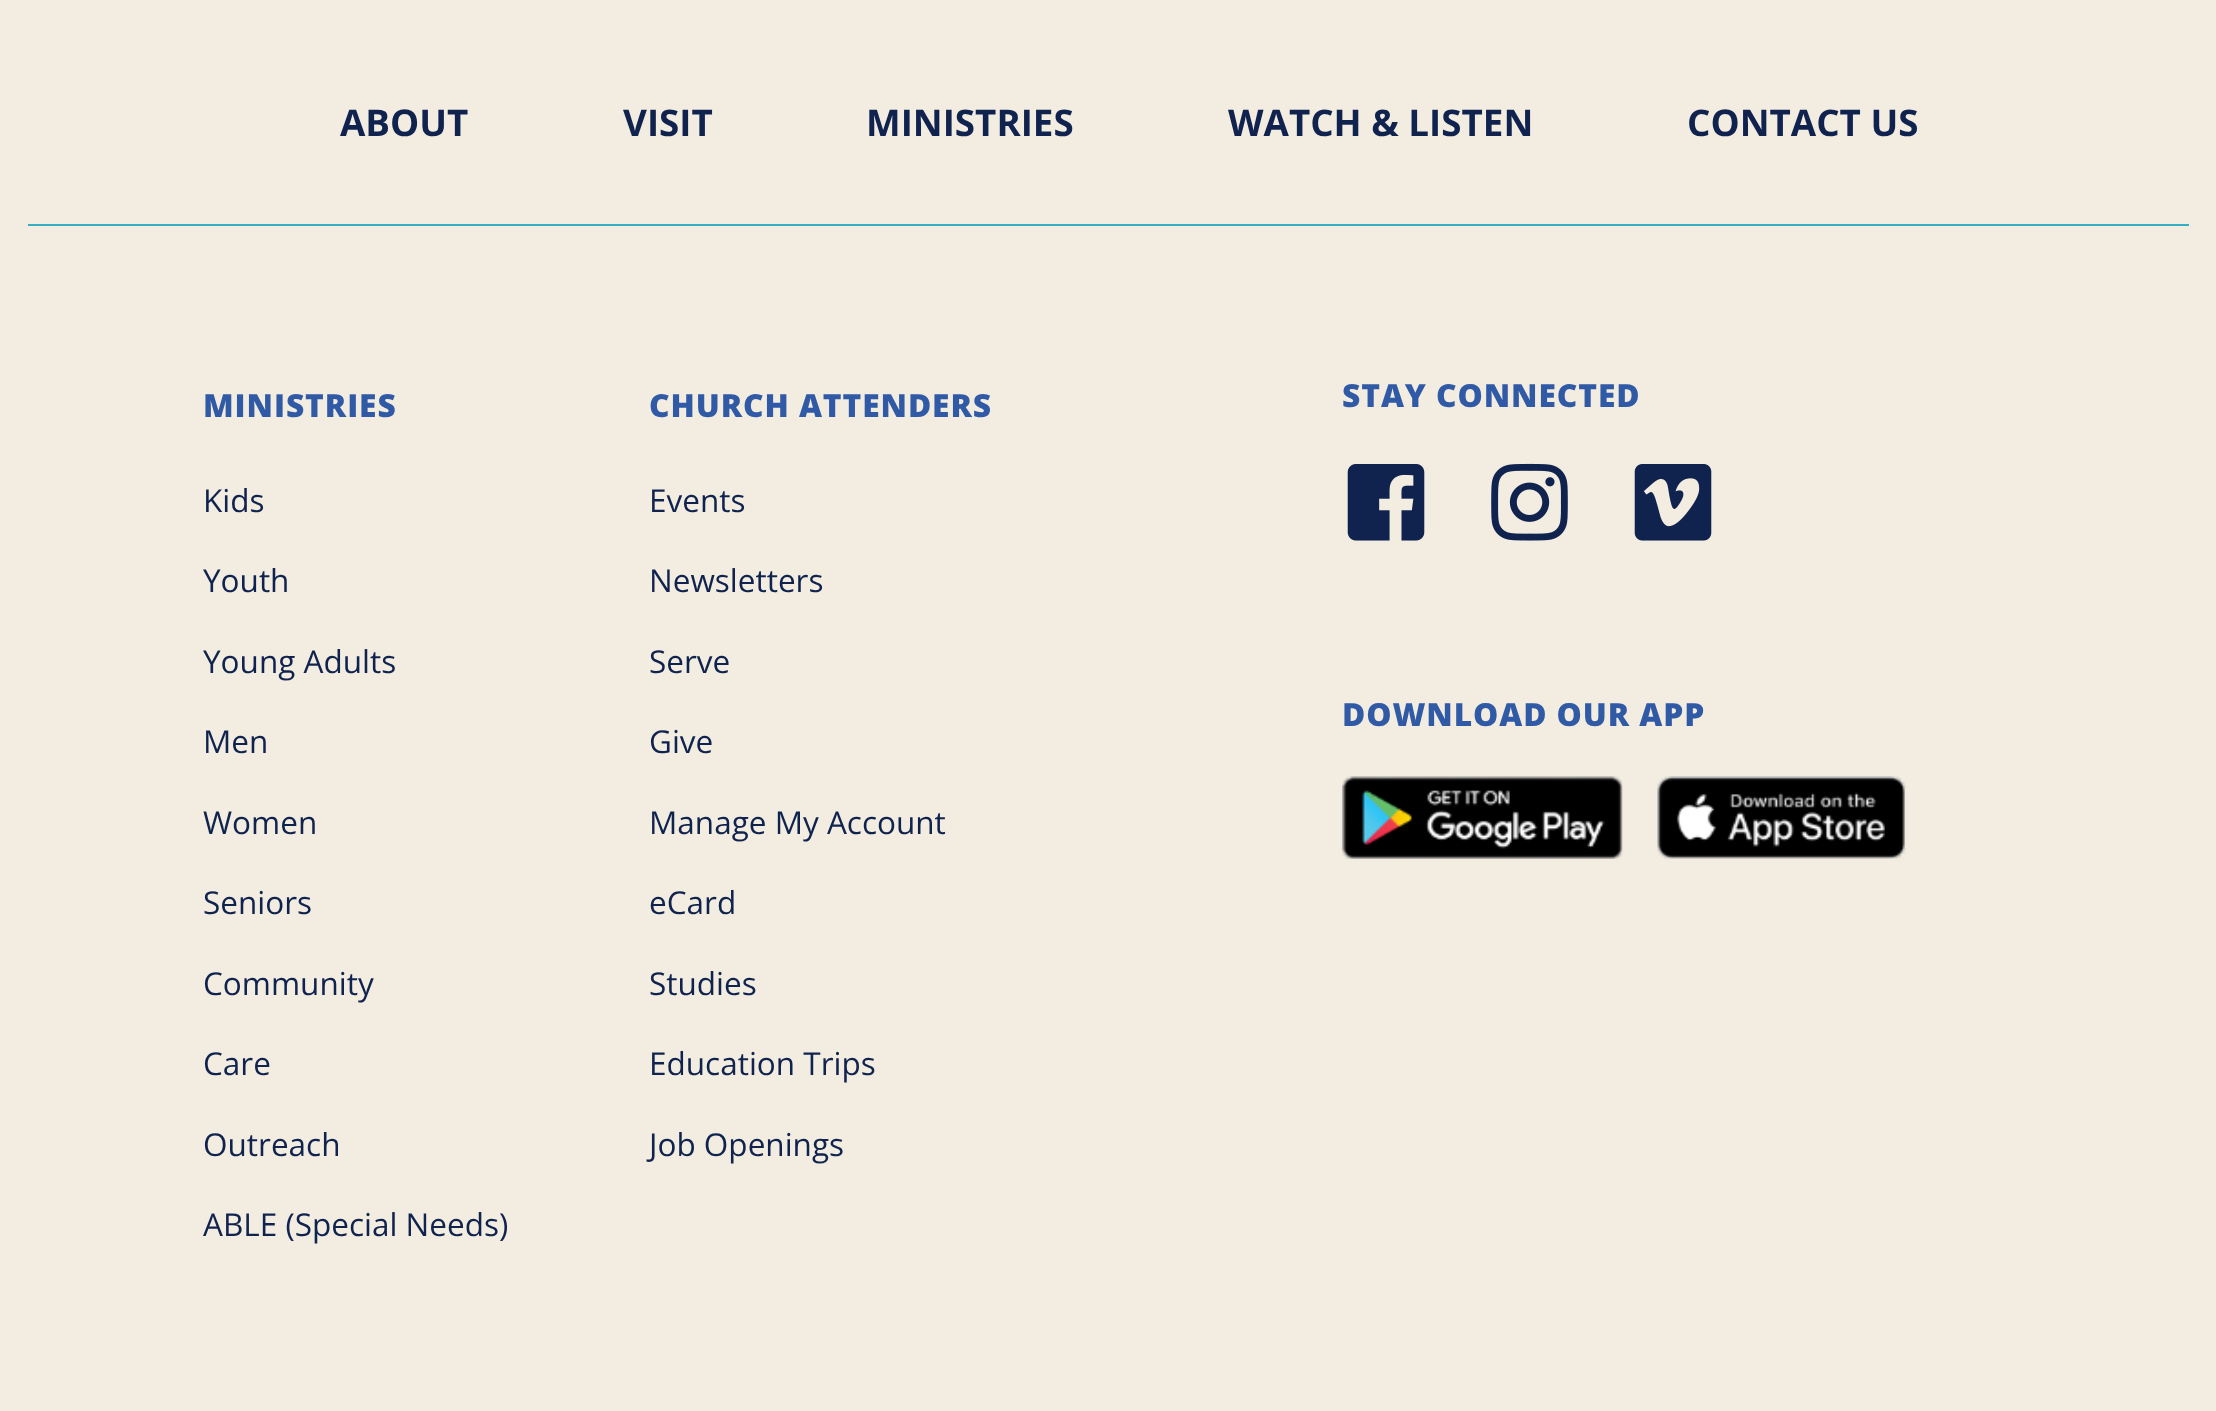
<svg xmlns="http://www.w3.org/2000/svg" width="2216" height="1411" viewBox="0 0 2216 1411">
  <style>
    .t1 { font: bold 36.75px Open Sans; fill: #10224e; }
    .t2 { font: 800 31.75px Open Sans; letter-spacing: 0.9px; fill: #315aa6; }
    .t3 { font: 31.5px Open Sans; fill: #10224e; }
  </style>
  <rect width="100%" height="100%" fill="#f2ede0"/>
  <rect x="28" y="224" width="2161" height="2" fill="#37afc2"/>
  <text x="340" y="136" class="t1">ABOUT</text>
  <text x="623" y="136" class="t1">VISIT</text>
  <text x="866" y="136" class="t1">MINISTRIES</text>
  <text x="1228" y="136" class="t1">WATCH &amp; LISTEN</text>
  <text x="1687" y="136" class="t1">CONTACT US</text>
  <text x="203" y="417" class="t2">MINISTRIES</text>
  <text x="203" y="512" class="t3">Kids</text>
  <text x="203" y="592" class="t3">Youth</text>
  <text x="203" y="673" class="t3">Young Adults</text>
  <text x="203" y="753" class="t3">Men</text>
  <text x="203" y="834" class="t3">Women</text>
  <text x="203" y="914" class="t3">Seniors</text>
  <text x="203" y="995" class="t3">Community</text>
  <text x="203" y="1075" class="t3">Care</text>
  <text x="203" y="1156" class="t3">Outreach</text>
  <text x="203" y="1236" class="t3">ABLE (Special Needs)</text>
  <text x="649" y="417" class="t2">CHURCH ATTENDERS</text>
  <text x="649" y="512" class="t3">Events</text>
  <text x="649" y="592" class="t3">Newsletters</text>
  <text x="649" y="673" class="t3">Serve</text>
  <text x="649" y="753" class="t3">Give</text>
  <text x="649" y="834" class="t3">Manage My Account</text>
  <text x="649" y="914" class="t3">eCard</text>
  <text x="649" y="995" class="t3">Studies</text>
  <text x="649" y="1075" class="t3">Education Trips</text>
  <text x="649" y="1156" class="t3">Job Openings</text>
  <text x="1342" y="407" class="t2">STAY CONNECTED</text>
  <image x="1347" y="464" width="78" height="77" href="images/1.png"/>
  <image x="1491" y="463" width="77" height="78" href="images/2.png"/>
  <image x="1634" y="464" width="78" height="77" href="images/3.png"/>
  <text x="1342" y="726" class="t2">DOWNLOAD OUR APP</text>
  <image x="1342" y="776" width="281" height="83" href="images/4.png"/>
  <image x="1657" y="776" width="250" height="83" href="images/5.png"/>
</svg>
